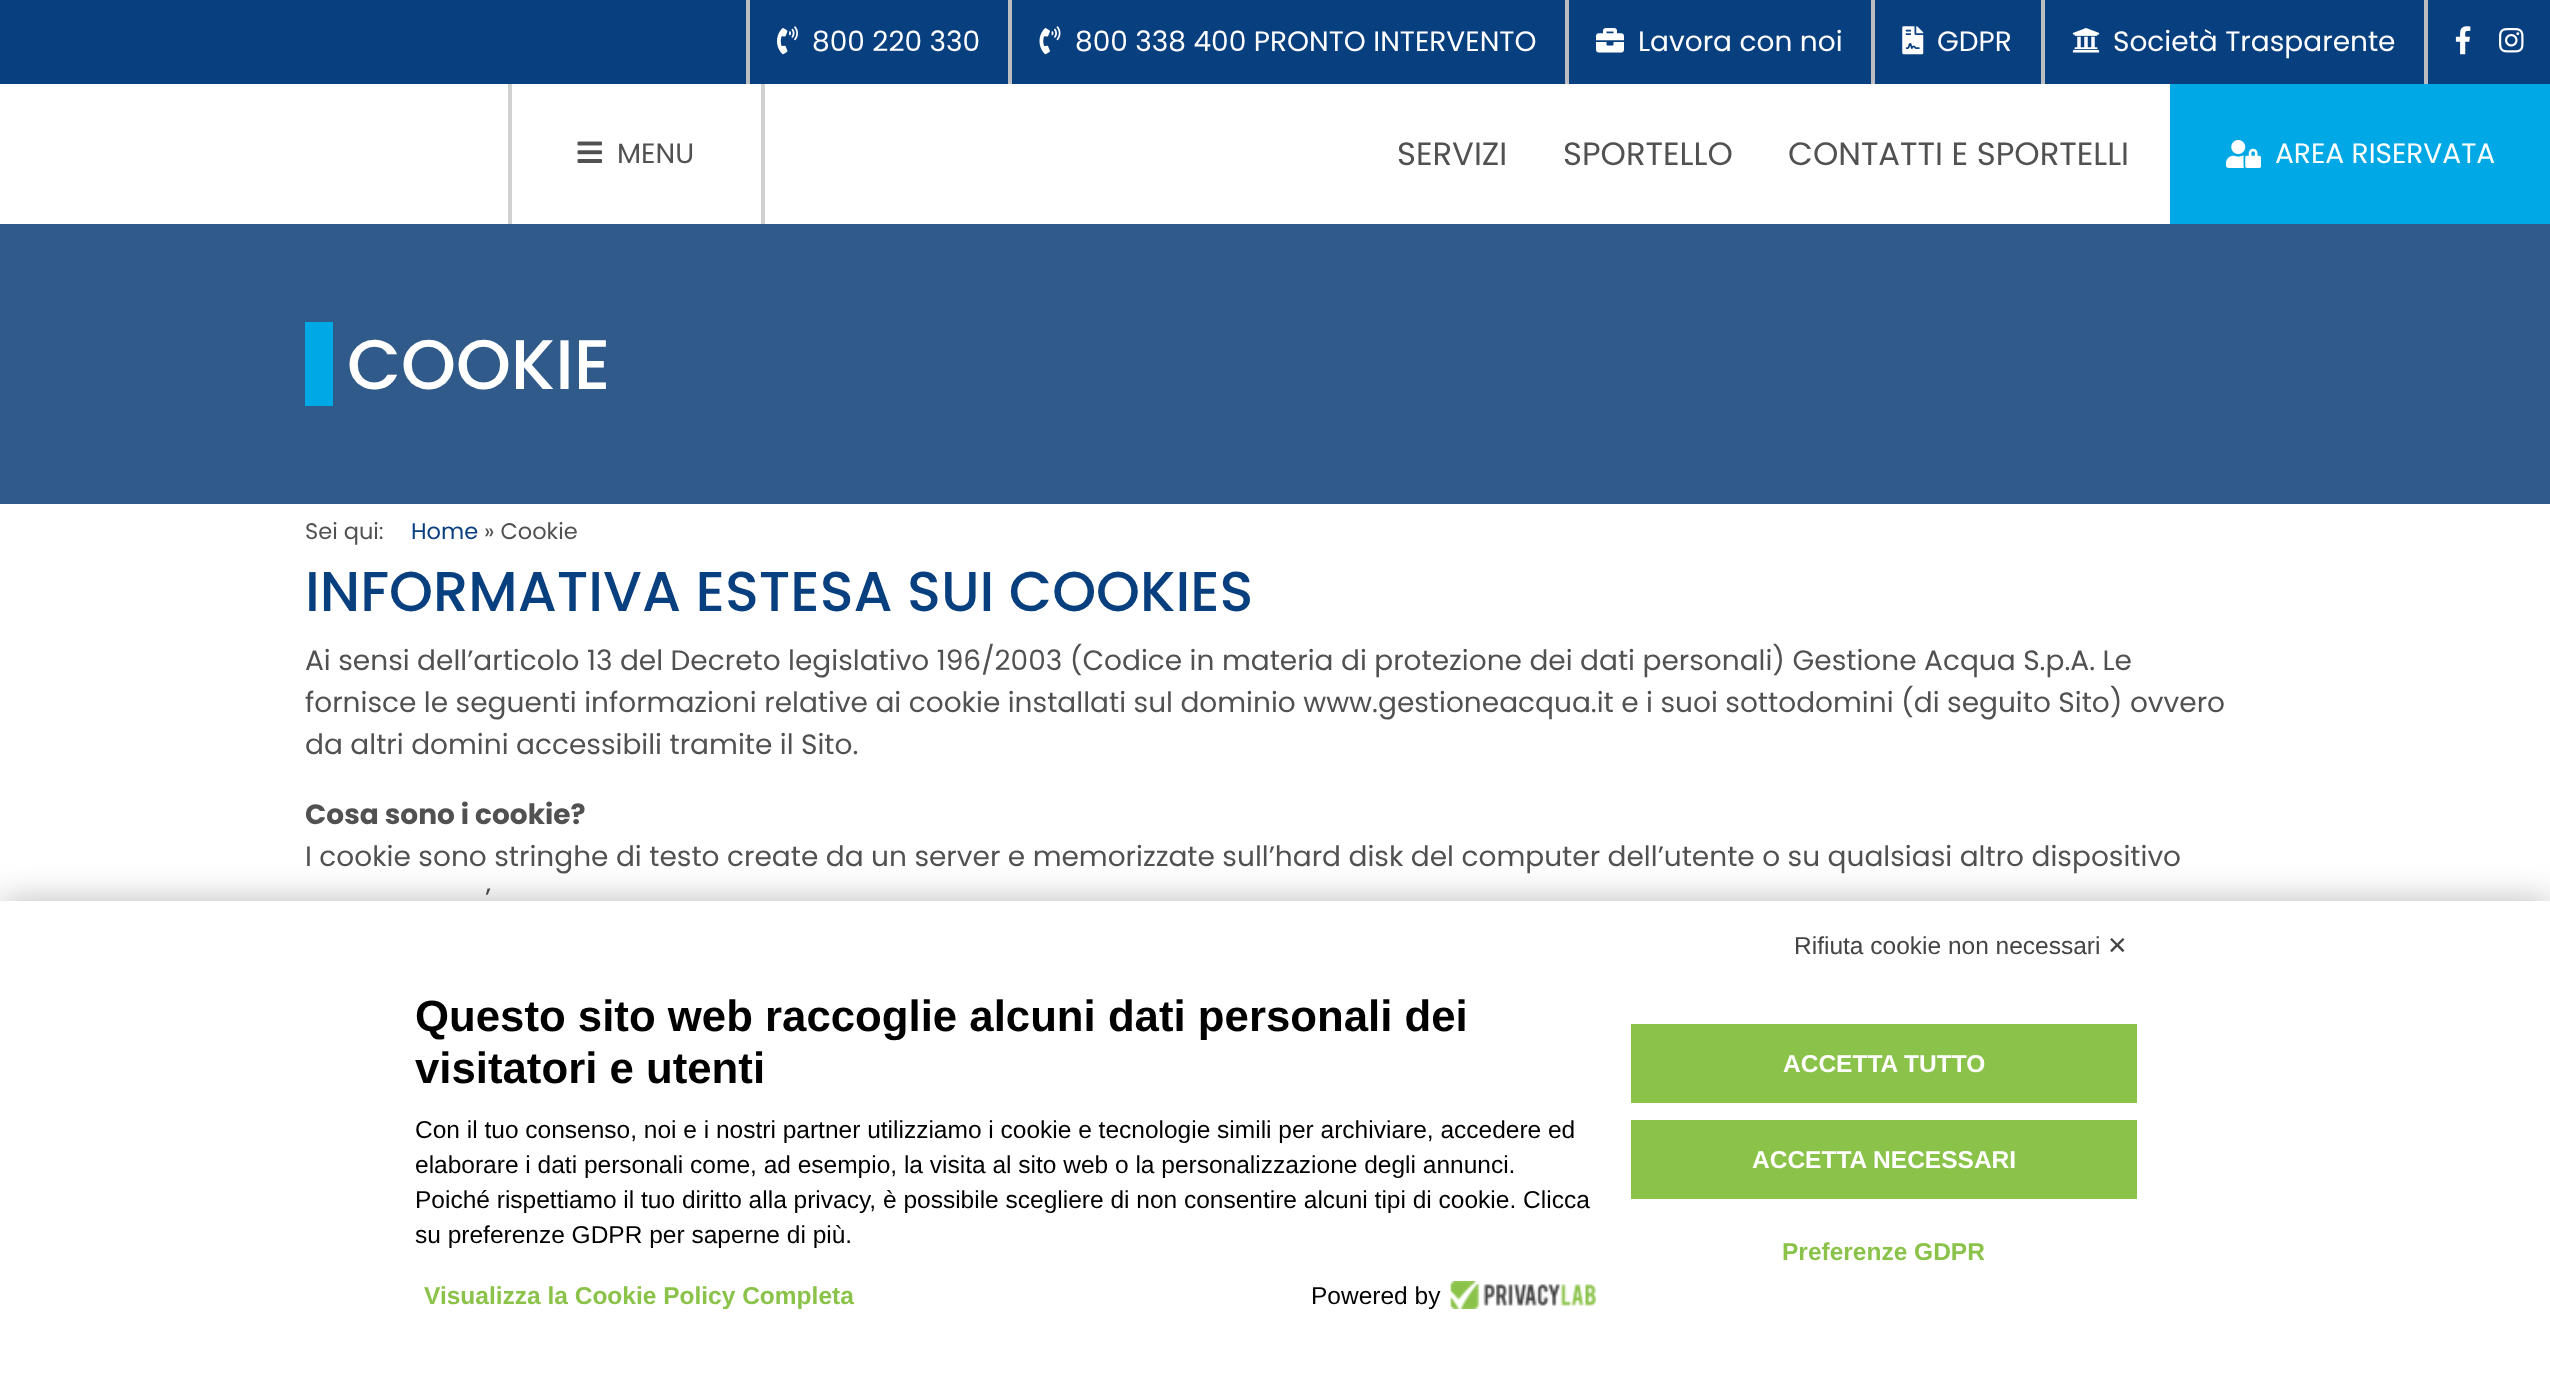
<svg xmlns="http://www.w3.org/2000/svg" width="2550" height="1394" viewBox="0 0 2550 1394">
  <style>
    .t1 { font: 28px Poppins; fill: #fff; }
    .t2 { font: 28px Poppins; fill: #515151; }
    .t3 { font: 32.25px Poppins; fill: #515151; }
    .t4 { font: 500 70px Poppins; fill: #fff; }
    .t5 { font: 22.5px Poppins; fill: #515151; }
    .t6 { font: 22.5px Poppins; fill: #083f7f; }
    .t7 { font: 500 56px Poppins; fill: #083f7f; }
    .t8 { font: bold 28px Poppins; fill: #515151; }
    .t9 { font: 24.5px Liberation Sans; fill: #444; }
    .t10 { font: 24.5px DejaVu Sans; fill: #444; }
    .t11 { font: bold 43.75px Liberation Sans; fill: #000; }
    .t12 { font: 24.5px Liberation Sans; fill: #000; }
    .t13 { font: bold 24.5px Liberation Sans; fill: #8bc34a; }
    .t14 { font: bold 24.5px Liberation Sans; fill: #fff; }
  </style>
  <rect width="100%" height="100%" fill="#fff"/>
  <rect x="0" y="0" width="2550" height="84" fill="#083f7f"/>
  <rect x="746" y="0" width="4" height="84" fill="#bcbdc0"/>
  <image x="777" y="26" width="21" height="29" href="images/1.png"/>
  <text x="812" y="51" class="t1">800 220 330</text>
  <rect x="1008" y="0" width="4" height="84" fill="#bcbdc0"/>
  <image x="1039" y="26" width="22" height="29" href="images/2.png"/>
  <text x="1075" y="51" class="t1">800 338 400 PRONTO INTERVENTO</text>
  <rect x="1565" y="0" width="4" height="84" fill="#bcbdc0"/>
  <image x="1596" y="28" width="28" height="25" href="images/3.png"/>
  <text x="1638" y="51" class="t1">Lavora con noi</text>
  <rect x="1871" y="0" width="4" height="84" fill="#bcbdc0"/>
  <image x="1902" y="26" width="22" height="29" href="images/4.png"/>
  <text x="1937" y="51" class="t1">GDPR</text>
  <rect x="2041" y="0" width="4" height="84" fill="#bcbdc0"/>
  <image x="2072" y="28" width="28" height="25" href="images/5.png"/>
  <text x="2113" y="51" class="t1">Società Trasparente</text>
  <rect x="2424" y="0" width="4" height="84" fill="#bcbdc0"/>
  <image x="2455" y="26" width="16" height="29" href="images/6.png"/>
  <image x="2499" y="28" width="25" height="25" href="images/7.png"/>
  <rect x="508" y="84" width="4" height="140" fill="#d1d1d1"/>
  <rect x="761" y="84" width="4" height="140" fill="#d1d1d1"/>
  <image x="577" y="141" width="25" height="22" href="images/8.png"/>
  <text x="617" y="163" class="t2">MENU</text>
  <text x="1397" y="165" class="t3">SERVIZI</text>
  <text x="1563" y="165" class="t3">SPORTELLO</text>
  <text x="1788" y="165" class="t3">CONTATTI E SPORTELLI</text>
  <rect x="2170" y="84" width="380" height="140" fill="#00a9e5"/>
  <image x="2226" y="140" width="35" height="28" href="images/9.png"/>
  <text x="2275" y="163" class="t1">AREA RISERVATA</text>
  <rect x="0" y="224" width="2550" height="280" fill="#305a8a"/>
  <rect x="305" y="322" width="28" height="84" fill="#00a9e5"/>
  <text x="347" y="389" class="t4">COOKIE</text>
  <text x="305" y="539" class="t5">Sei qui:</text>
  <text x="411" y="539" class="t6">Home</text>
  <text x="484" y="539" class="t5">» Cookie</text>
  <text x="305" y="611" class="t7">INFORMATIVA ESTESA SUI COOKIES</text>
  <text x="305" y="670" class="t2">Ai sensi dell’articolo 13 del Decreto legislativo 196/2003 (Codice in materia di protezione dei dati personali) Gestione Acqua S.p.A. Le</text>
  <text x="305" y="712" class="t2">fornisce le seguenti informazioni relative ai cookie installati sul dominio www.gestioneacqua.it e i suoi sottodomini (di seguito Sito) ovvero</text>
  <text x="305" y="754" class="t2">da altri domini accessibili tramite il Sito.</text>
  <text x="305" y="824" class="t8">Cosa sono i cookie?</text>
  <text x="305" y="866" class="t2">I cookie sono stringhe di testo create da un server e memorizzate sull’hard disk del computer dell’utente o su qualsiasi altro dispositivo</text>
  <text x="485" y="908" class="t2">’</text>
  <rect x="0" y="901" width="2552" height="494" fill="#00000045" filter="blur(17.5px)"/>
  <rect x="0" y="901" width="2550" height="493" fill="#fff"/>
  <text x="1794" y="954" class="t9">Rifiuta cookie non necessari</text>
  <text x="2107" y="954" class="t10">✕</text>
  <text x="415" y="1031" class="t11">Questo sito web raccoglie alcuni dati personali dei</text>
  <text x="415" y="1083" class="t11">visitatori e utenti</text>
  <text x="415" y="1138" class="t12">Con il tuo consenso, noi e i nostri partner utilizziamo i cookie e tecnologie simili per archiviare, accedere ed</text>
  <text x="415" y="1173" class="t12">elaborare i dati personali come, ad esempio, la visita al sito web o la personalizzazione degli annunci.</text>
  <text x="415" y="1208" class="t12">Poiché rispettiamo il tuo diritto alla privacy, è possibile scegliere di non consentire alcuni tipi di cookie. Clicca</text>
  <text x="415" y="1243" class="t12">su preferenze GDPR per saperne di più.</text>
  <text x="424" y="1304" class="t13">Visualizza la Cookie Policy Completa</text>
  <text x="1311" y="1304" class="t12">Powered by</text>
  <image x="1450" y="1281" width="146" height="28" href="images/10.png"/>
  <rect x="1631" y="1024" width="506" height="79" fill="#8bc34a"/>
  <text x="1783" y="1072" class="t14">ACCETTA TUTTO</text>
  <rect x="1631" y="1120" width="506" height="79" fill="#8bc34a"/>
  <text x="1752" y="1168" class="t14">ACCETTA NECESSARI</text>
  <text x="1782" y="1260" class="t13">Preferenze GDPR</text>
</svg>
